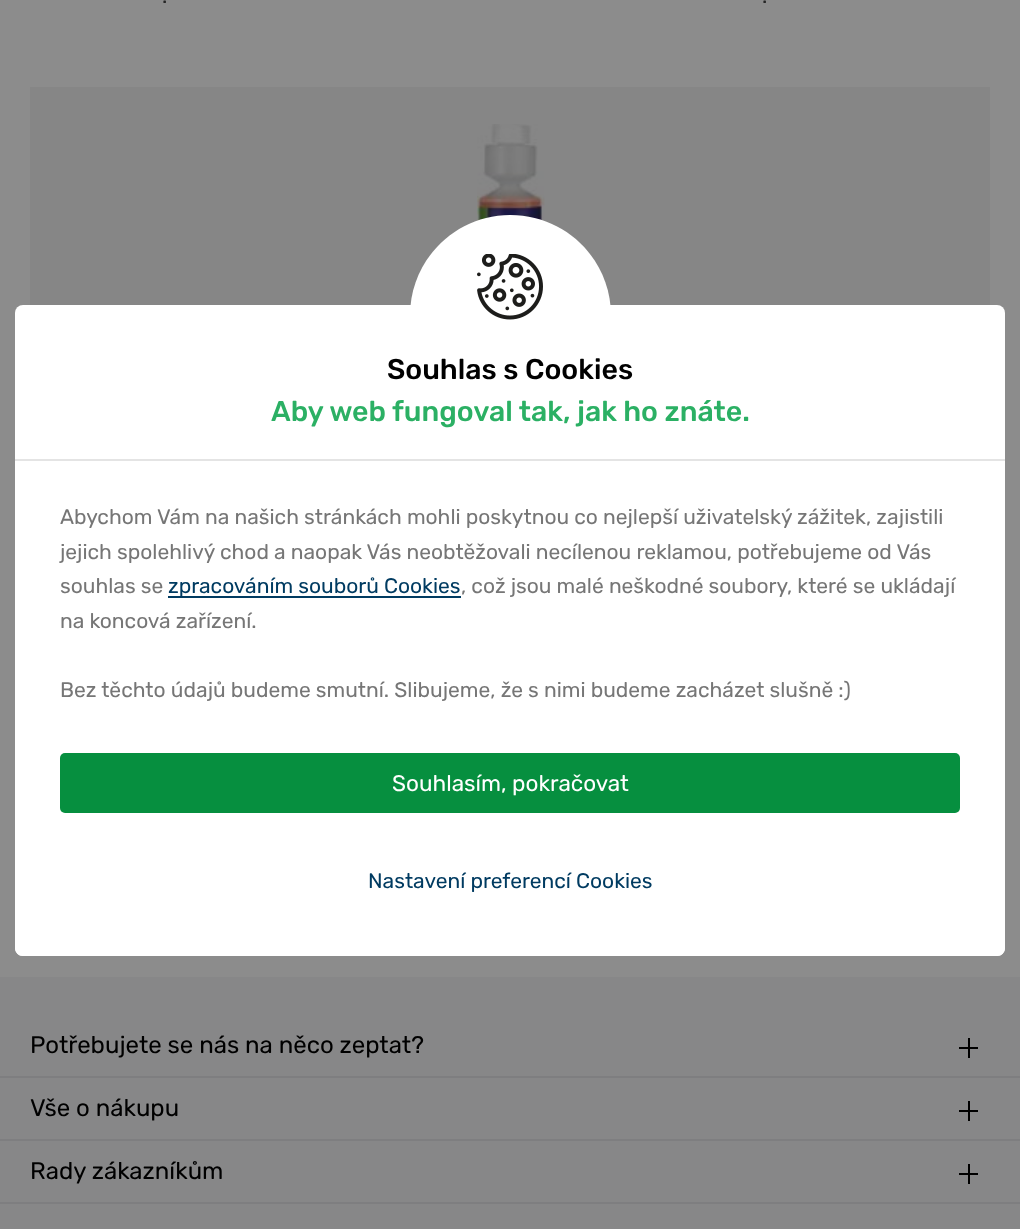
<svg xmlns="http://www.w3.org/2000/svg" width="1020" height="1229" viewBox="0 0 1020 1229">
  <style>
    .t1 { font: 21px Rubik; fill: #252525; }
    .t2 { font: 24px Rubik; fill: #000; }
    .t3 { font: 500 28.5px Rubik; fill: #000; }
    .t4 { font: 500 28.5px Rubik; fill: #2bb064; }
    .t5 { font: 21px Rubik; fill: #767676; }
    .t6 { font: 21px Rubik; fill: #003b61; }
    .t7 { font: 22.5px Rubik; fill: #fff; }
  </style>
  <rect width="100%" height="100%" fill="#8c8c8c"/>
  <text x="162" y="3" class="t1">.</text>
  <text x="762" y="3" class="t1">.</text>
  <image x="477" y="124" width="68" height="98" href="images/1.png"/>
  <rect x="30" y="87" width="960" height="218" fill="#0000000a"/>
  <rect x="0" y="977" width="1020" height="252" fill="#878788"/>
  <rect x="0" y="1076" width="1020" height="2" fill="#7e7e80"/>
  <text x="30" y="1053" class="t2">Potřebujete se nás na něco zeptat?</text>
  <rect x="959" y="1047" width="19" height="2" fill="#000"/>
  <rect x="968" y="1038" width="2" height="20" fill="#000"/>
  <rect x="0" y="1139" width="1020" height="2" fill="#7e7e80"/>
  <text x="30" y="1116" class="t2">Vše o nákupu</text>
  <rect x="959" y="1110" width="19" height="2" fill="#000"/>
  <rect x="968" y="1101" width="2" height="20" fill="#000"/>
  <rect x="0" y="1202" width="1020" height="2" fill="#7e7e80"/>
  <text x="30" y="1179" class="t2">Rady zákazníkům</text>
  <rect x="959" y="1173" width="19" height="2" fill="#000"/>
  <rect x="968" y="1164" width="2" height="20" fill="#000"/>
  <rect x="15" y="305" width="990" height="651" rx="8" fill="#fff"/>
  <path d="M510.5 215C566 215 611 260 611 315.5V320H410V315.5C410 260 455 215 510.5 215Z" fill="#fff"/>
  <image x="477" y="254" width="66" height="66" href="images/2.png"/>
  <text x="387" y="379" class="t3">Souhlas s Cookies</text>
  <text x="271" y="421" class="t4">Aby web fungoval tak, jak ho znáte.</text>
  <rect x="15" y="459" width="990" height="2" fill="#e4e4e4"/>
  <text x="60" y="524" class="t5">Abychom Vám na našich stránkách mohli poskytnou co nejlepší uživatelský zážitek, zajistili</text>
  <text x="60" y="559" class="t5">jejich spolehlivý chod a naopak Vás neobtěžovali necílenou reklamou, potřebujeme od Vás</text>
  <text x="60" y="593" class="t5">souhlas se</text>
  <rect x="168" y="596" width="293" height="2" fill="#003b61"/>
  <text x="168" y="593" class="t6">zpracováním souborů Cookies</text>
  <text x="461" y="593" class="t5">, což jsou malé neškodné soubory, které se ukládají</text>
  <text x="60" y="628" class="t5">na koncová zařízení.</text>
  <text x="60" y="697" class="t5">Bez těchto údajů budeme smutní. Slibujeme, že s nimi budeme zacházet slušně :)</text>
  <path d="M15 753H1005V948C1005 952.5 1001.5 956 997 956H23C18.5 956 15 952.5 15 948Z" fill="#fff"/>
  <rect x="60" y="753" width="900" height="60" rx="5" fill="#068f3f"/>
  <text x="392" y="791" class="t7">Souhlasím, pokračovat</text>
  <text x="368" y="888" class="t6">Nastavení preferencí Cookies</text>
</svg>
